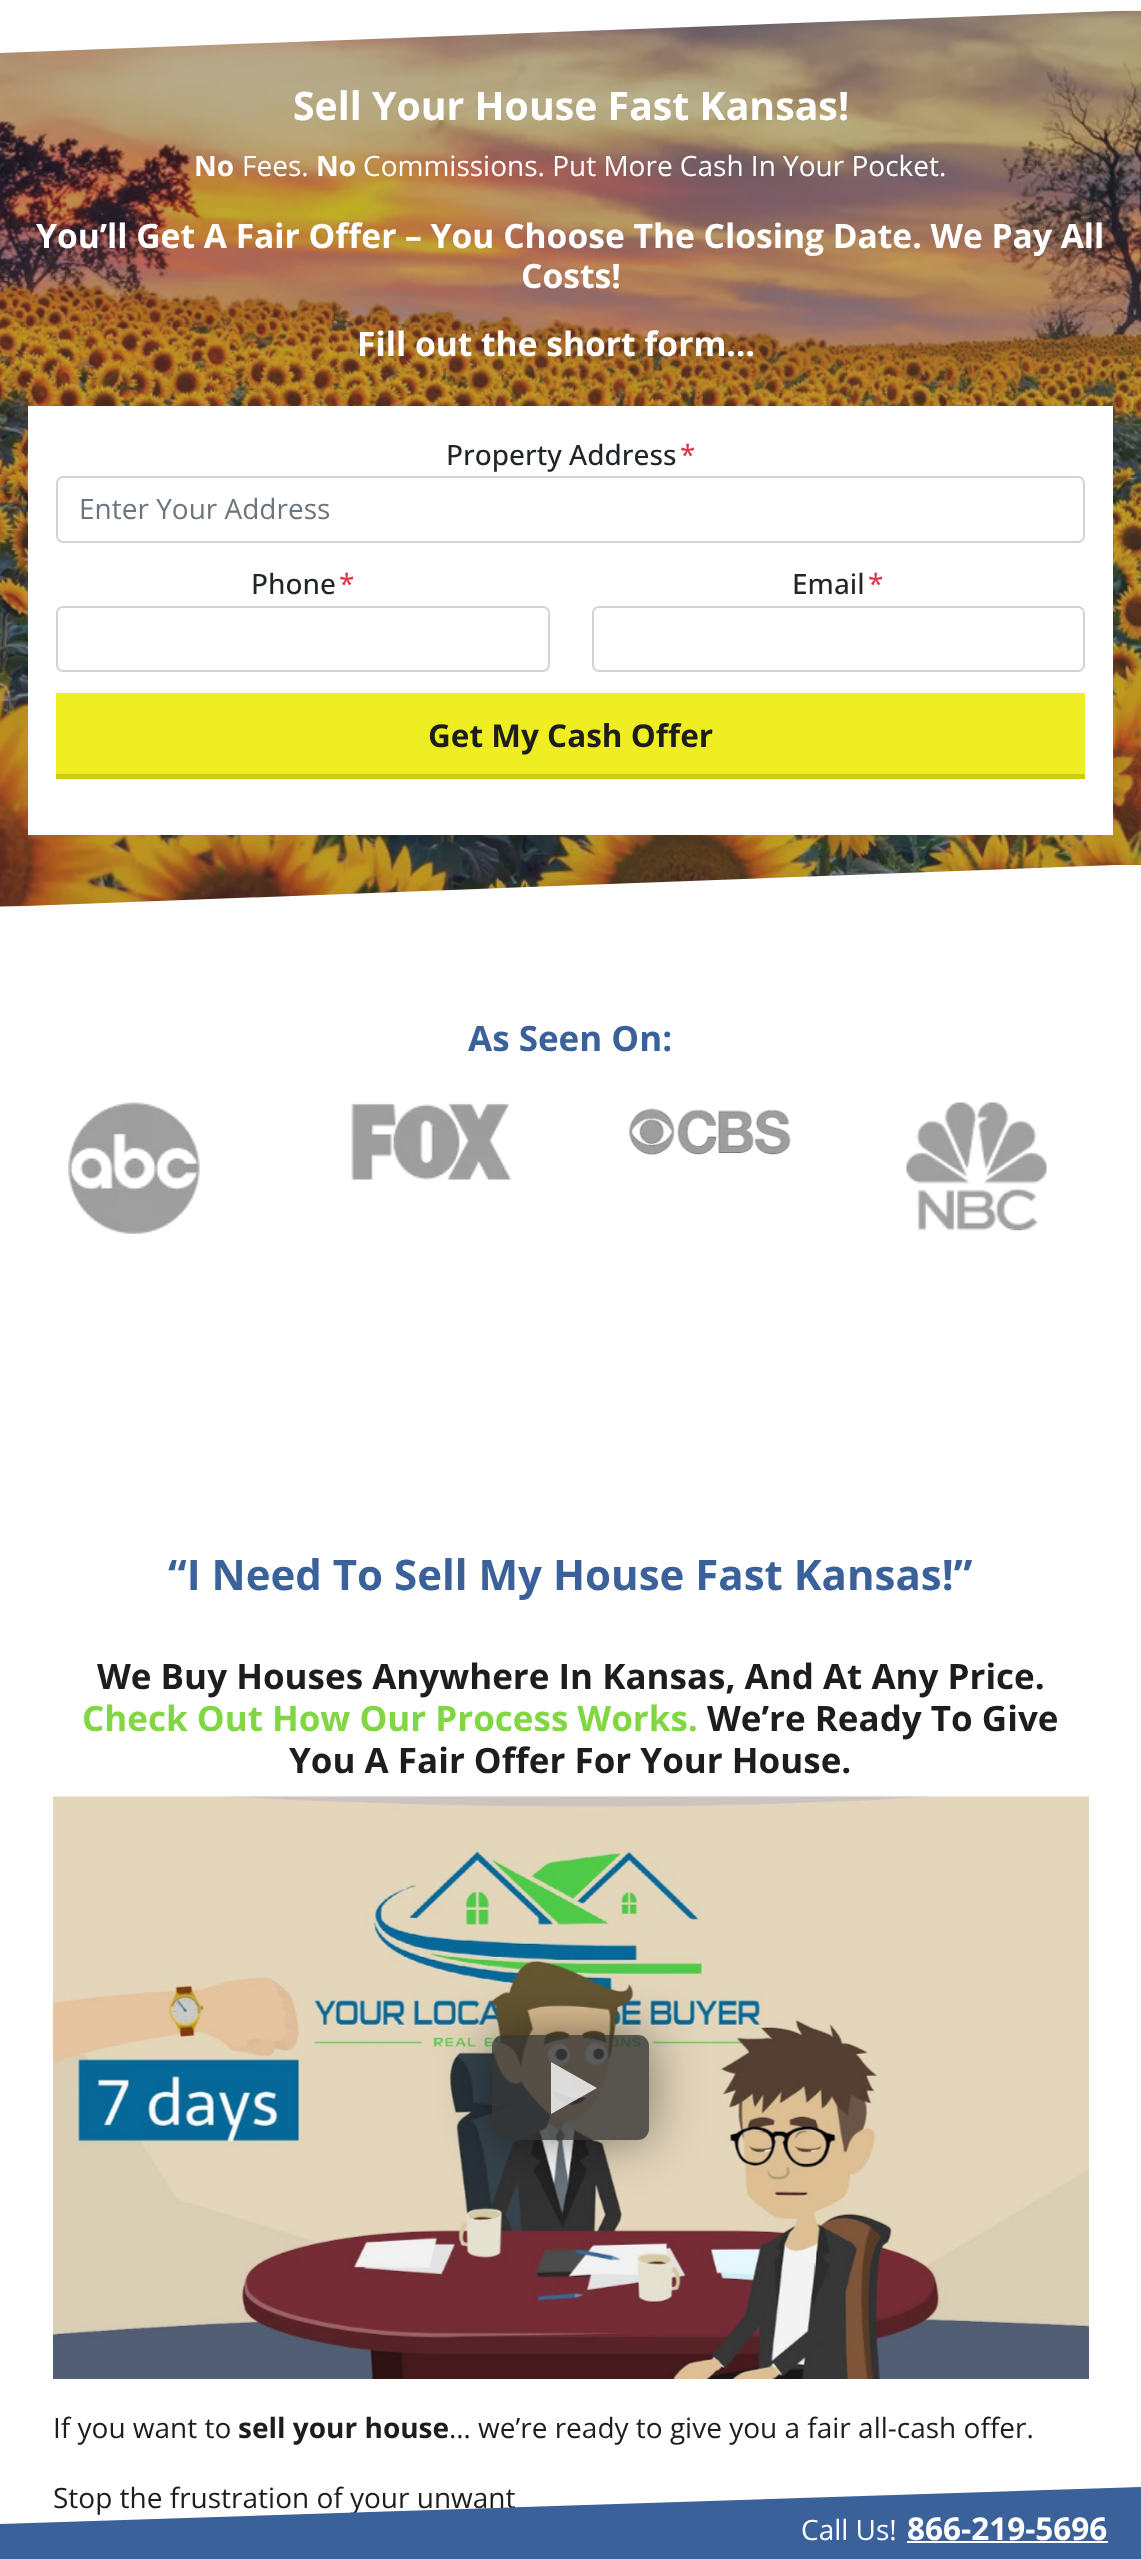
<svg xmlns="http://www.w3.org/2000/svg" width="1141" height="2559" viewBox="0 0 1141 2559">
  <style>
    .t1 { font: bold 39.25px Open Sans; fill: #fff; }
    .t2 { font: bold 28px Open Sans; fill: #fff; }
    .t3 { font: 28px Open Sans; fill: #fff; }
    .t4 { font: bold 33.6px Open Sans; fill: #fff; }
    .t5 { font: 500 28px Open Sans; fill: #212529; }
    .t6 { font: 500 28px Open Sans; fill: #dc3545; }
    .t7 { font: 28px Open Sans; fill: #6c757d; }
    .t8 { font: bold 31.5px Open Sans; fill: #1d1d1d; }
    .t9 { font: bold 35px Open Sans; fill: #3b619b; }
    .t10 { font: bold 42px Open Sans; fill: #3b619b; }
    .t11 { font: bold 35px Open Sans; fill: #1d1d1d; }
    .t12 { font: bold 35px Open Sans; fill: #81d742; }
    .t13 { font: 28px Open Sans; fill: #1d1d1d; }
    .t14 { font: bold 28px Open Sans; fill: #1d1d1d; }
    .t15 { font: bold 31.5px Open Sans; fill: #fff; }
  </style>
  <defs>
    <linearGradient id="g1" gradientUnits="userSpaceOnUse" x1="1141" y1="459" x2="0" y2="459"><stop offset="0" stop-color="#2d4262" stop-opacity="0.3"/><stop offset="1" stop-color="#2e2d62" stop-opacity="0.3"/></linearGradient>
    <clipPath id="clip1"><rect x="0" y="865" width="1141" height="45"/></clipPath>
    <clipPath id="clip2"><path d="M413 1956H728V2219H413ZM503 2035H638C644 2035 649 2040 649 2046V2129C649 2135 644 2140 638 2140H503C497 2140 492 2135 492 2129V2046C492 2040 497 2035 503 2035Z" clip-rule="evenodd"/></clipPath>
  </defs>
  <rect width="100%" height="100%" fill="#fff"/>
  <image x="0" y="10" width="1141" height="897" href="images/1.png"/>
  <rect x="0" y="11" width="1141" height="896" fill="url(#g1)"/>
  <path d="M1141 10V8H0V53Z" fill="#fff"/>
  <text x="293" y="120" class="t1">Sell Your House Fast Kansas!</text>
  <text x="194" y="176" class="t2">No</text>
  <text x="242" y="176" class="t3">Fees.</text>
  <text x="316" y="176" class="t2">No</text>
  <text x="363" y="176" class="t3">Commissions. Put More Cash In Your Pocket.</text>
  <text x="36" y="248" class="t4">You’ll Get A Fair Offer – You Choose The Closing Date. We Pay All</text>
  <text x="521" y="288" class="t4">Costs!</text>
  <text x="357" y="356" class="t4">Fill out the short form…</text>
  <rect x="28" y="406" width="1085" height="429" fill="#fff"/>
  <text x="446" y="465" class="t5">Property Address</text>
  <text x="680" y="465" class="t6">*</text>
  <rect x="57" y="477" width="1027" height="65" rx="6" fill="none" stroke="#ced4da" stroke-width="2"/>
  <text x="79" y="519" class="t7">Enter Your Address</text>
  <text x="251" y="594" class="t5">Phone</text>
  <text x="339" y="594" class="t6">*</text>
  <rect x="57" y="607" width="492" height="64" rx="6" fill="none" stroke="#ced4da" stroke-width="2"/>
  <text x="792" y="594" class="t5">Email</text>
  <text x="868" y="594" class="t6">*</text>
  <rect x="593" y="607" width="491" height="64" rx="6" fill="none" stroke="#ced4da" stroke-width="2"/>
  <rect x="56" y="693" width="1029" height="81" fill="#ee2"/>
  <rect x="56" y="774" width="1029" height="5" fill="#cdcd10"/>
  <text x="428" y="747" class="t8">Get My Cash Offer</text>
  <g clip-path="url(#clip1)">
    <path d="M0 907V909H1141V864Z" fill="#fff"/>
  </g>
  <text x="468" y="1051" class="t9">As Seen On:</text>
  <image x="68" y="1102" width="132" height="132" href="images/2.png"/>
  <image x="351" y="1103" width="161" height="77" href="images/3.png"/>
  <image x="628" y="1108" width="163" height="47" href="images/4.png"/>
  <image x="906" y="1102" width="141" height="129" href="images/5.png"/>
  <text x="168" y="1590" class="t10">“I Need To Sell My House Fast Kansas!”</text>
  <text x="97" y="1689" class="t11">We Buy Houses Anywhere In Kansas, And At Any Price.</text>
  <text x="82" y="1731" class="t12">Check Out How Our Process Works.</text>
  <text x="707" y="1731" class="t11">We’re Ready To Give</text>
  <text x="289" y="1773" class="t11">You A Fair Offer For Your House.</text>
  <image x="53" y="1795" width="1036" height="584" href="images/6.png"/>
  <g clip-path="url(#clip2)">
    <rect x="492" y="2035" width="157" height="105" rx="11" fill="#0000007a" filter="blur(26px)"/>
  </g>
  <rect x="492" y="2035" width="157" height="105" rx="11" fill="#333333cc"/>
  <path d="M551 2114V2062L597 2088Z" fill="#ffffffcc"/>
  <text x="53" y="2438" class="t13">If you want to</text>
  <text x="238" y="2438" class="t14">sell your house</text>
  <text x="449" y="2438" class="t13">… we’re ready to give you a fair all-cash offer.</text>
  <text x="53" y="2508" class="t13">Stop the frustration of your unwant</text>
  <path d="M0 2524V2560H1141V2487Z" fill="#3b619b"/>
  <text x="801" y="2540" class="t3">Call Us!</text>
  <text x="907" y="2540" class="t15">866-219-5696</text>
  <rect x="907" y="2541" width="201" height="2" fill="#fff"/>
</svg>
